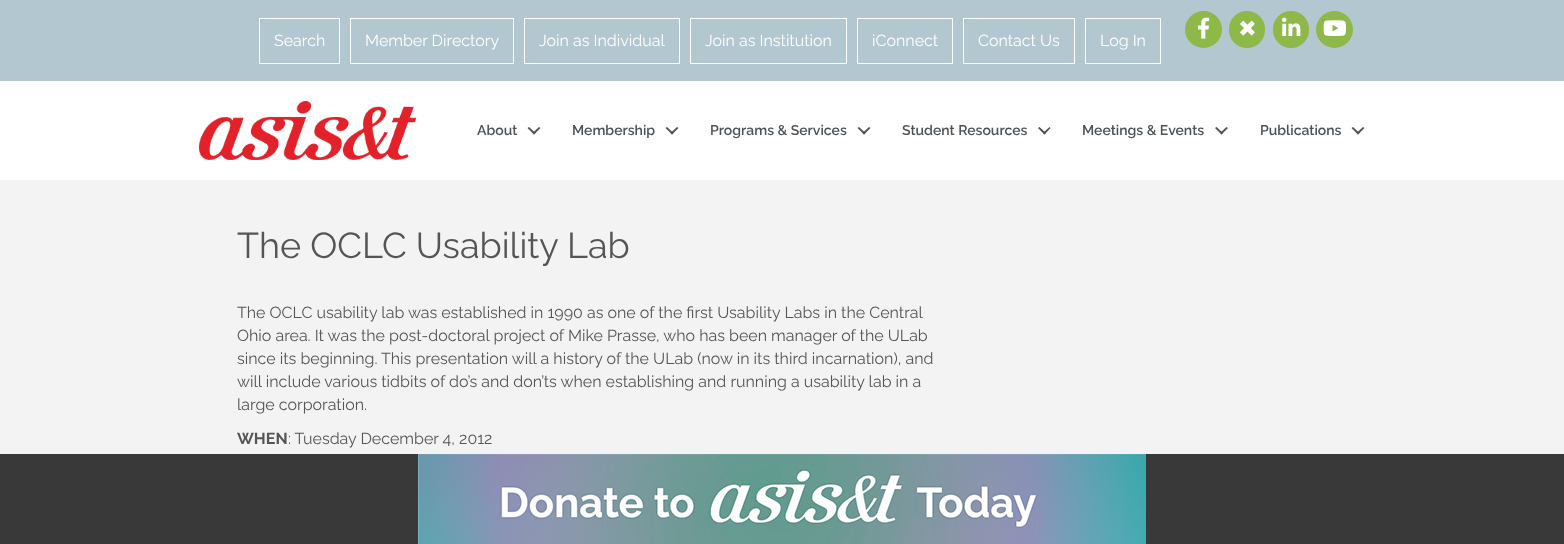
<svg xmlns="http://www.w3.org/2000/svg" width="1564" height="544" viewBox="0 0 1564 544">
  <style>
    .t1 { font: 16px Raleway; fill: #fff; }
    .t2 { font: 600 14px Raleway; fill: #4c5256; }
    .t3 { font: 36px Raleway; fill: #555; }
    .t4 { font: 16px Raleway; fill: #555; }
    .t5 { font: bold 16px Raleway; fill: #555; }
  </style>
  <rect width="100%" height="100%" fill="#b2c7d0"/>
  <rect x="259.5" y="18.5" width="80" height="45" fill="none" stroke="#fff"/>
  <text x="274" y="46" class="t1">Search</text>
  <rect x="350.5" y="18.5" width="163" height="45" fill="none" stroke="#fff"/>
  <text x="365" y="46" class="t1">Member Directory</text>
  <rect x="524.5" y="18.5" width="155" height="45" fill="none" stroke="#fff"/>
  <text x="539" y="46" class="t1">Join as Individual</text>
  <rect x="690.5" y="18.5" width="156" height="45" fill="none" stroke="#fff"/>
  <text x="705" y="46" class="t1">Join as Institution</text>
  <rect x="857.5" y="18.5" width="95" height="45" fill="none" stroke="#fff"/>
  <text x="872" y="46" class="t1">iConnect</text>
  <rect x="963.5" y="18.5" width="111" height="45" fill="none" stroke="#fff"/>
  <text x="978" y="46" class="t1">Contact Us</text>
  <rect x="1085.5" y="18.5" width="75" height="45" fill="none" stroke="#fff"/>
  <text x="1100" y="46" class="t1">Log In</text>
  <circle cx="1203.5" cy="29.5" r="18.5" fill="#8eb848"/>
  <image x="1197" y="17" width="13" height="22" href="images/1.png"/>
  <rect x="1229" y="11" width="36" height="37" rx="18" fill="#8eb848"/>
  <image x="1240" y="20" width="15" height="16" href="images/2.png"/>
  <rect x="1273" y="11" width="36" height="37" rx="18" fill="#8eb848"/>
  <image x="1282" y="17" width="19" height="19" href="images/3.png"/>
  <circle cx="1334.5" cy="29.5" r="18.5" fill="#8eb848"/>
  <image x="1323" y="20" width="23" height="16" href="images/4.png"/>
  <rect x="0" y="81" width="1564" height="99" fill="#fff"/>
  <image x="199" y="101" width="217" height="59" href="images/5.png"/>
  <text x="477" y="135" class="t2">About</text>
  <path d="M539 127L540.5 128L534 134.5L532.5 133Z" fill="#4c5256"/>
  <path d="M529 127L535.5 133L534 134.5L527.5 128Z" fill="#4c5256"/>
  <text x="572" y="135" class="t2">Membership</text>
  <path d="M677 127L678.5 128L672 134.5L670.5 133Z" fill="#4c5256"/>
  <path d="M667 127L673.5 133L672 134.5L665.5 128Z" fill="#4c5256"/>
  <text x="710" y="135" class="t2">Programs &amp; Services</text>
  <path d="M869 127L870.5 128L864 134.5L862.5 133Z" fill="#4c5256"/>
  <path d="M859 127L865.5 133L864 134.5L857.5 128Z" fill="#4c5256"/>
  <text x="902" y="135" class="t2">Student Resources</text>
  <path d="M1049.5 127L1050.5 128L1044.5 134.5L1043 133Z" fill="#4c5256"/>
  <path d="M1039.5 127L1046 133L1044.5 134.5L1038 128Z" fill="#4c5256"/>
  <text x="1082" y="135" class="t2">Meetings &amp; Events</text>
  <path d="M1226.5 127L1228 128L1221.5 134.5L1220 133Z" fill="#4c5256"/>
  <path d="M1216.5 127L1223 133L1221.5 134.5L1215 128Z" fill="#4c5256"/>
  <text x="1260" y="135" class="t2">Publications</text>
  <path d="M1363 127L1364.5 128L1358 134.5L1356.5 133Z" fill="#4c5256"/>
  <path d="M1353 127L1359.5 133L1358 134.5L1351.5 128Z" fill="#4c5256"/>
  <rect x="0" y="180" width="1564" height="274" fill="#f3f3f3"/>
  <rect x="0" y="454" width="1564" height="90" fill="#393939"/>
  <text x="237" y="258" class="t3">The OCLC Usability Lab</text>
  <text x="237" y="318" class="t4">The OCLC usability lab was established in 1990 as one of the first Usability Labs in the Central</text>
  <text x="237" y="341" class="t4">Ohio area. It was the post-doctoral project of Mike Prasse, who has been manager of the ULab</text>
  <text x="237" y="364" class="t4">since its beginning. This presentation will a history of the ULab (now in its third incarnation), and</text>
  <text x="237" y="387" class="t4">will include various tidbits of do’s and don’ts when establishing and running a usability lab in a</text>
  <text x="237" y="410" class="t4">large corporation.</text>
  <text x="237" y="444" class="t5">WHEN</text>
  <text x="288" y="444" class="t4">: Tuesday December 4, 2012</text>
  <image x="418" y="454" width="728" height="90" href="images/6.png"/>
</svg>
